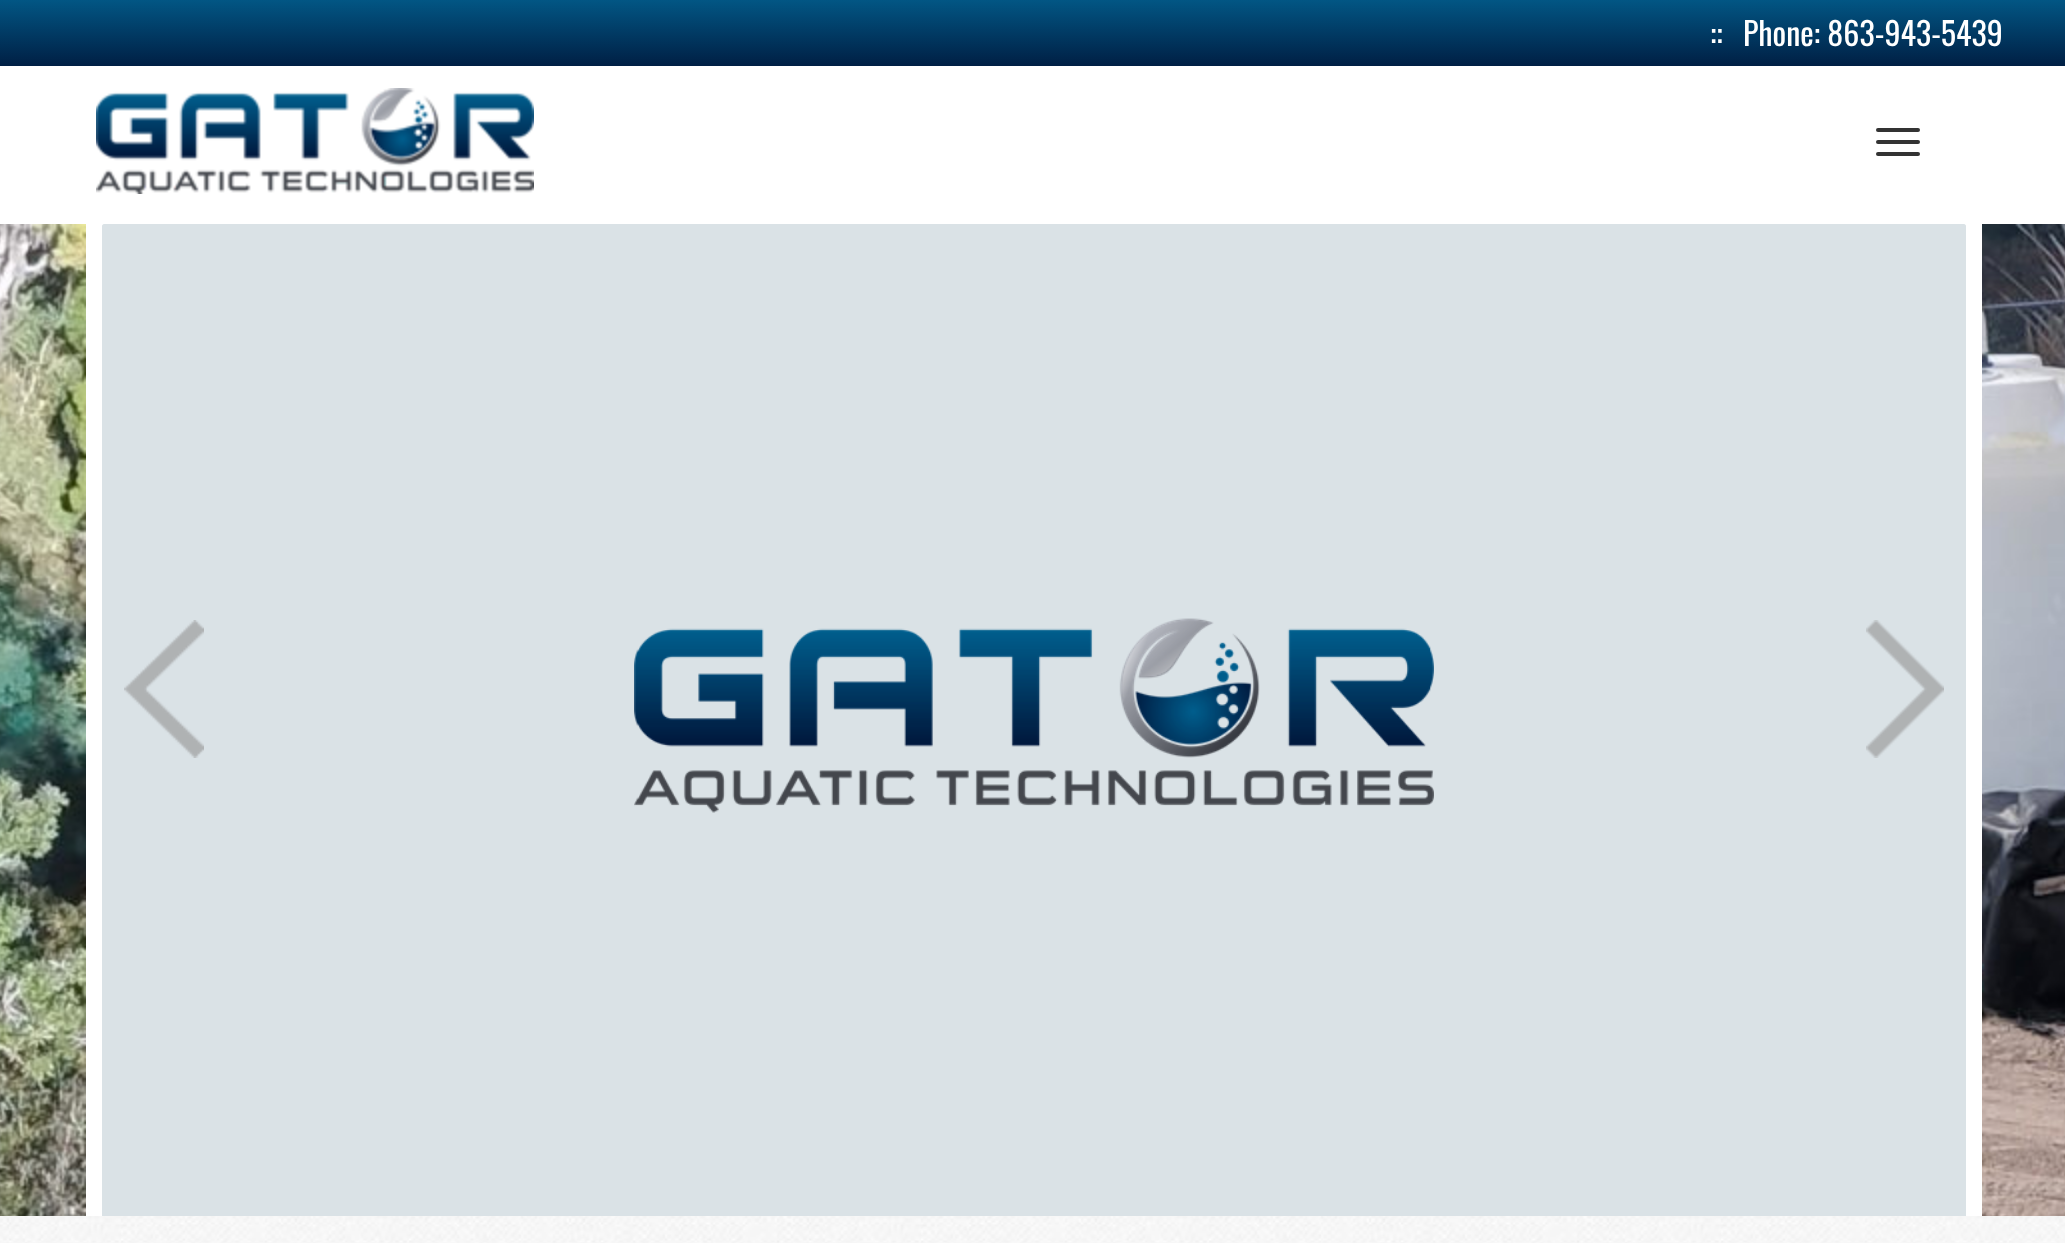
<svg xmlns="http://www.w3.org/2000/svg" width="2065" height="1243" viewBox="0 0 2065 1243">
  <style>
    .t1 { font: 32px Oswald; fill: #fff; }
  </style>
  <defs>
    <linearGradient id="g1" gradientUnits="userSpaceOnUse" x1="1033" y1="0" x2="1033" y2="66"><stop offset="0" stop-color="#025684"/><stop offset="1" stop-color="#001f44"/></linearGradient>
  </defs>
  <rect width="100%" height="100%" fill="#fff"/>
  <rect x="0" y="0" width="2065" height="66" fill="url(#g1)"/>
  <text x="1710" y="46" class="t1">::</text>
  <text x="1743" y="46" class="t1">Phone: 863-943-5439</text>
  <image x="96" y="88" width="438" height="106" href="images/1.png"/>
  <rect x="1876" y="128" width="44" height="4" rx="2" fill="#333"/>
  <rect x="1876" y="140" width="44" height="4" rx="2" fill="#333"/>
  <rect x="1876" y="152" width="44" height="4" rx="2" fill="#333"/>
  <image x="0" y="224" width="86" height="992" href="images/2.png"/>
  <path d="M104 224H1964C1965 224 1966 225 1966 226V1216H102V226C102 225 103 224 104 224Z" fill="#dae2e6"/>
  <image x="634" y="618" width="800" height="195" href="images/3.png"/>
  <image x="1982" y="224" width="83" height="992" href="images/4.png"/>
  <image x="124" y="620" width="80" height="138" href="images/5.png"/>
  <image x="1866" y="620" width="78" height="138" href="images/6.png"/>
  <image x="0" y="1216" width="2065" height="27" href="images/7.png"/>
</svg>
